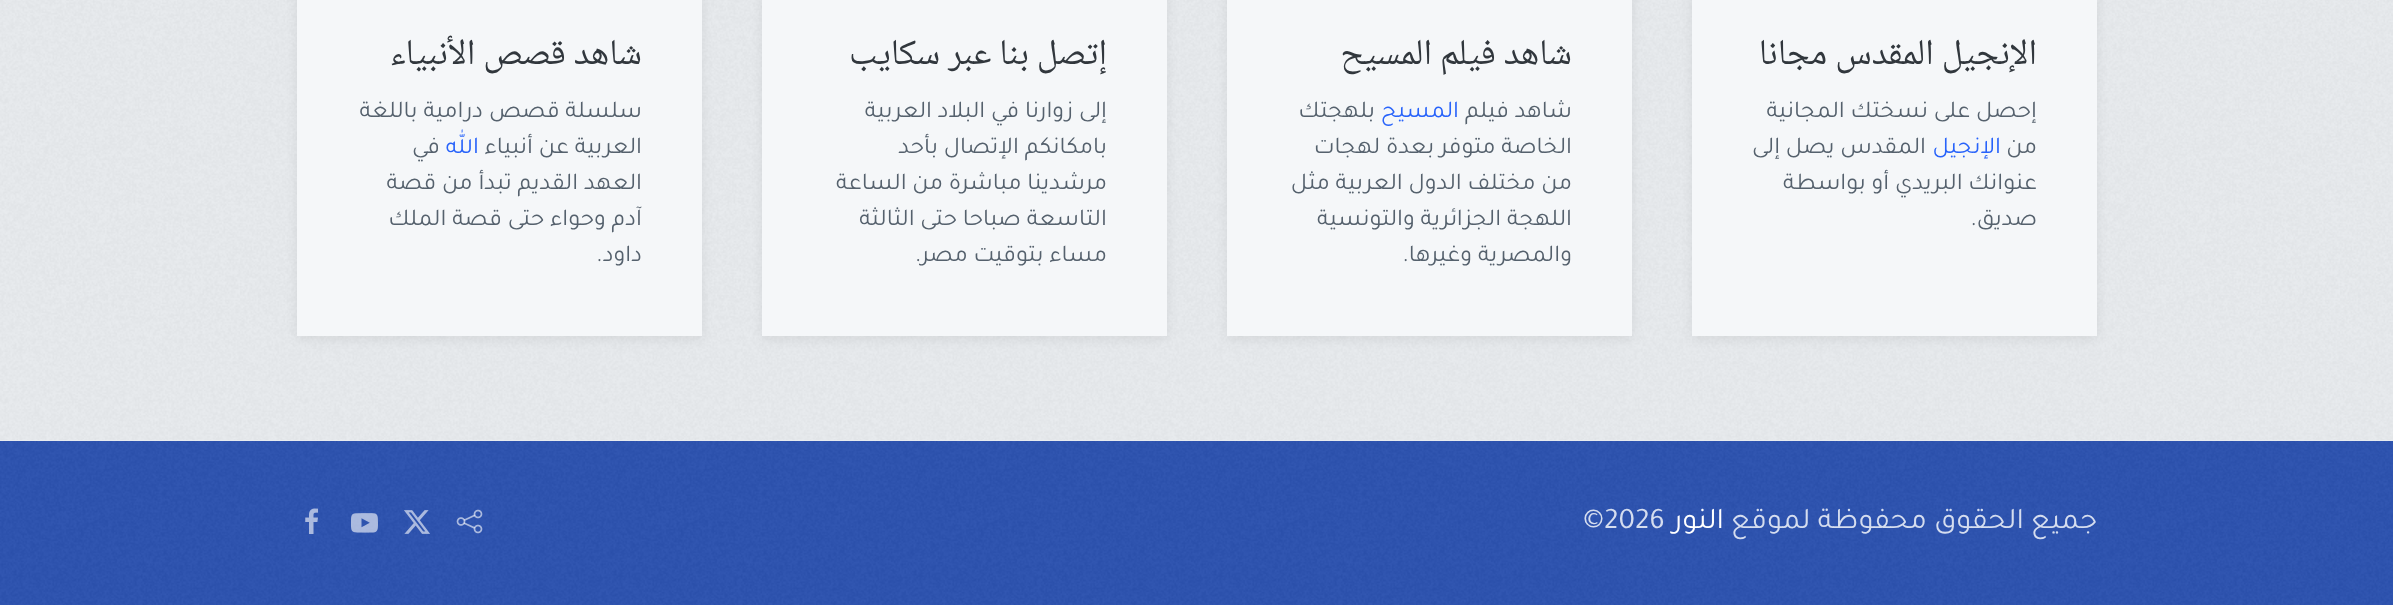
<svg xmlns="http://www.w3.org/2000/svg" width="2393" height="605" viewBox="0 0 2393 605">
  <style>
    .t1 { font: 36px Noto Naskh Arabic; direction: rtl; fill: #31373d; }
    .t2 { font: 24px Tajawal; direction: rtl; fill: #55616d; }
    .t3 { font: 24px Tajawal; direction: rtl; fill: #2863fa; }
    .t4 { font: 30px Tajawal; direction: rtl; fill: #d5ddef; }
    .t5 { font: 30px Tajawal; direction: rtl; fill: #fff; }
    .t6 { font: 30px Tajawal; fill: #d5ddef; }
  </style>
  <rect width="100%" height="100%" fill="#2c52b0"/>
  <rect x="0" y="0" width="2393" height="441" fill="#e9ecef"/>
  <image x="0" y="0" width="2393" height="440" href="images/1.png"/>
  <rect x="1692" y="-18" width="405" height="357" fill="#00000012" filter="blur(6px)"/>
  <rect x="1692" y="0" width="405" height="336" fill="#f5f7f9"/>
  <text x="2037" y="64" class="t1">الإنجيل المقدس مجانا</text>
  <text x="2037" y="117" class="t2">إحصل على نسختك المجانية</text>
  <text x="2037" y="153" class="t2">من</text>
  <text x="2001" y="153" class="t3">الإنجيل</text>
  <text x="1926" y="153" class="t2">المقدس يصل إلى</text>
  <text x="2037" y="189" class="t2">عنوانك البريدي أو بواسطة</text>
  <text x="2037" y="225" class="t2">صديق.</text>
  <rect x="1227" y="-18" width="405" height="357" fill="#00000012" filter="blur(6px)"/>
  <rect x="1227" y="0" width="405" height="336" fill="#f5f7f9"/>
  <text x="1572" y="64" class="t1">شاهد فيلم المسيح</text>
  <text x="1572" y="117" class="t2">شاهد فيلم</text>
  <text x="1459" y="117" class="t3">المسيح</text>
  <text x="1375" y="117" class="t2">بلهجتك</text>
  <text x="1572" y="153" class="t2">الخاصة متوفر بعدة لهجات</text>
  <text x="1572" y="189" class="t2">من مختلف الدول العربية مثل</text>
  <text x="1572" y="225" class="t2">اللهجة الجزائرية والتونسية</text>
  <text x="1572" y="261" class="t2">والمصرية وغيرها.</text>
  <rect x="762" y="-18" width="405" height="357" fill="#00000012" filter="blur(6px)"/>
  <rect x="762" y="0" width="405" height="336" fill="#f5f7f9"/>
  <text x="1107" y="64" class="t1">إتصل بنا عبر سكايب</text>
  <text x="1107" y="117" class="t2">إلى زوارنا في البلاد العربية</text>
  <text x="1107" y="153" class="t2">بامكانكم الإتصال بأحد</text>
  <text x="1107" y="189" class="t2">مرشدينا مباشرة من الساعة</text>
  <text x="1107" y="225" class="t2">التاسعة صباحا حتى الثالثة</text>
  <text x="1107" y="261" class="t2">مساء بتوقيت مصر.</text>
  <rect x="297" y="-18" width="405" height="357" fill="#00000012" filter="blur(6px)"/>
  <rect x="297" y="0" width="405" height="336" fill="#f5f7f9"/>
  <text x="642" y="64" class="t1">شاهد قصص الأنبياء</text>
  <text x="642" y="117" class="t2">سلسلة قصص درامية باللغة</text>
  <text x="642" y="153" class="t2">العربية عن أنبياء</text>
  <text x="479" y="153" class="t3">الله</text>
  <text x="440" y="153" class="t2">في</text>
  <text x="642" y="189" class="t2">العهد القديم تبدأ من قصة</text>
  <text x="642" y="225" class="t2">آدم وحواء حتى قصة الملك</text>
  <text x="642" y="261" class="t2">داود.</text>
  <image x="0" y="441" width="2393" height="164" href="images/2.png"/>
  <text x="2097" y="528" class="t4">جميع الحقوق محفوظة لموقع</text>
  <text x="1724" y="528" class="t5">النور</text>
  <text x="1604" y="528" class="t6">2026</text>
  <text x="1583" y="528" class="t6">©</text>
  <image x="456" y="509" width="27" height="25" href="images/3.png"/>
  <image x="404" y="510" width="26" height="24" href="images/4.png"/>
  <image x="351" y="513" width="27" height="20" href="images/5.png"/>
  <image x="305" y="508" width="13" height="26" href="images/6.png"/>
</svg>
